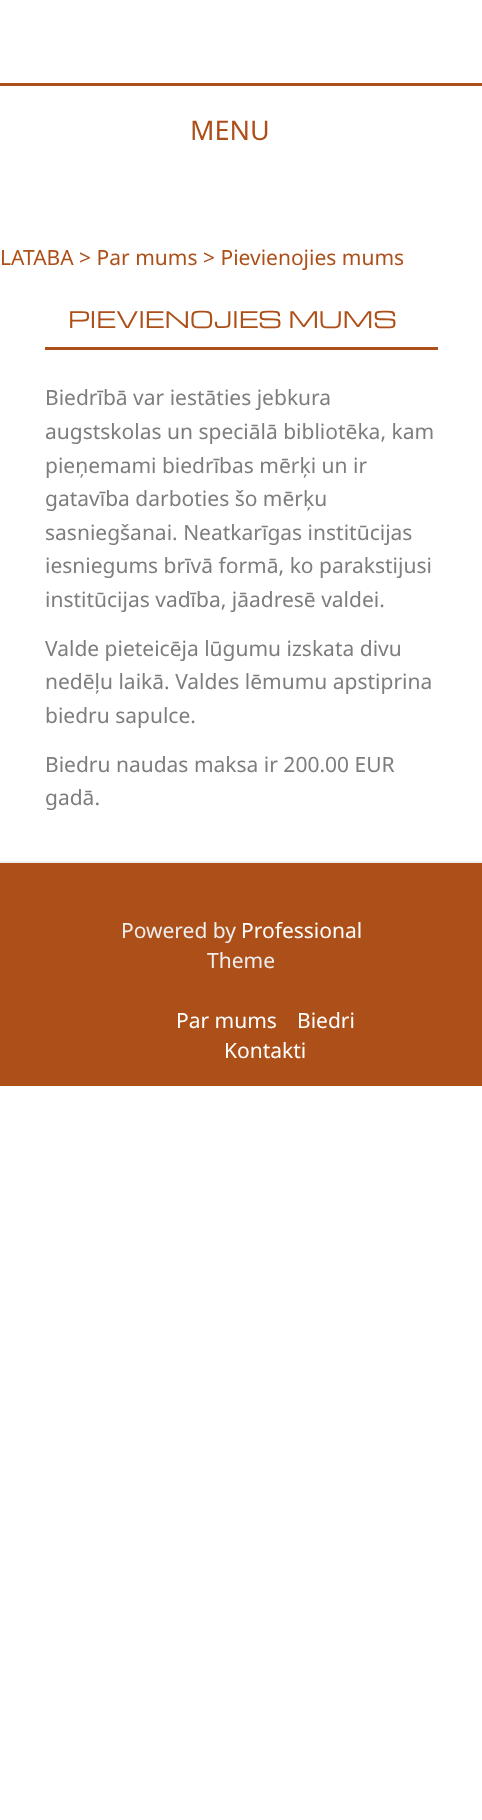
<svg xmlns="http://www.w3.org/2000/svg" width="482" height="1820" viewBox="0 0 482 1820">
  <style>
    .t1 { font: 27px Noto Sans; fill: #ad4f18; }
    .t2 { font: 21px Noto Sans; fill: #ad4f18; }
    .t3 { font: 22.5px Michroma; fill: #ad4f18; }
    .t4 { font: 21px Noto Sans; fill: #7d7d7d; }
    .t5 { font: 21px Noto Sans; fill: #eee; }
    .t6 { font: 21px Noto Sans; fill: #fff; }
  </style>
  <rect width="100%" height="100%" fill="#fff"/>
  <rect x="0" y="83" width="482" height="3" fill="#ad4f18"/>
  <text x="190" y="140" class="t1">MENU</text>
  <text x="0" y="265" class="t2">LATABA &gt; Par mums &gt; Pievienojies mums</text>
  <rect x="45" y="347" width="393" height="3" fill="#ad4f18"/>
  <text x="68" y="328" class="t3">PIEVIENOJIES MUMS</text>
  <text x="45" y="405" class="t4">Biedrībā var iestāties jebkura</text>
  <text x="45" y="439" class="t4">augstskolas un speciālā bibliotēka, kam</text>
  <text x="45" y="473" class="t4">pieņemami biedrības mērķi un ir</text>
  <text x="45" y="506" class="t4">gatavība darboties šo mērķu</text>
  <text x="45" y="540" class="t4">sasniegšanai. Neatkarīgas institūcijas</text>
  <text x="45" y="573" class="t4">iesniegums brīvā formā, ko parakstijusi</text>
  <text x="45" y="607" class="t4">institūcijas vadība, jāadresē valdei.</text>
  <text x="45" y="656" class="t4">Valde pieteicēja lūgumu izskata divu</text>
  <text x="45" y="689" class="t4">nedēļu laikā. Valdes lēmumu apstiprina</text>
  <text x="45" y="723" class="t4">biedru sapulce.</text>
  <text x="45" y="772" class="t4">Biedru naudas maksa ir 200.00 EUR</text>
  <text x="45" y="805" class="t4">gadā.</text>
  <rect x="0" y="863" width="482" height="223" fill="#ad4f18"/>
  <rect x="0" y="861" width="482" height="2" fill="#eee"/>
  <text x="121" y="938" class="t5">Powered by</text>
  <text x="241" y="938" class="t6">Professional</text>
  <text x="207" y="968" class="t5">Theme</text>
  <text x="176" y="1028" class="t6">Par mums</text>
  <text x="297" y="1028" class="t6">Biedri</text>
  <text x="224" y="1058" class="t6">Kontakti</text>
</svg>
